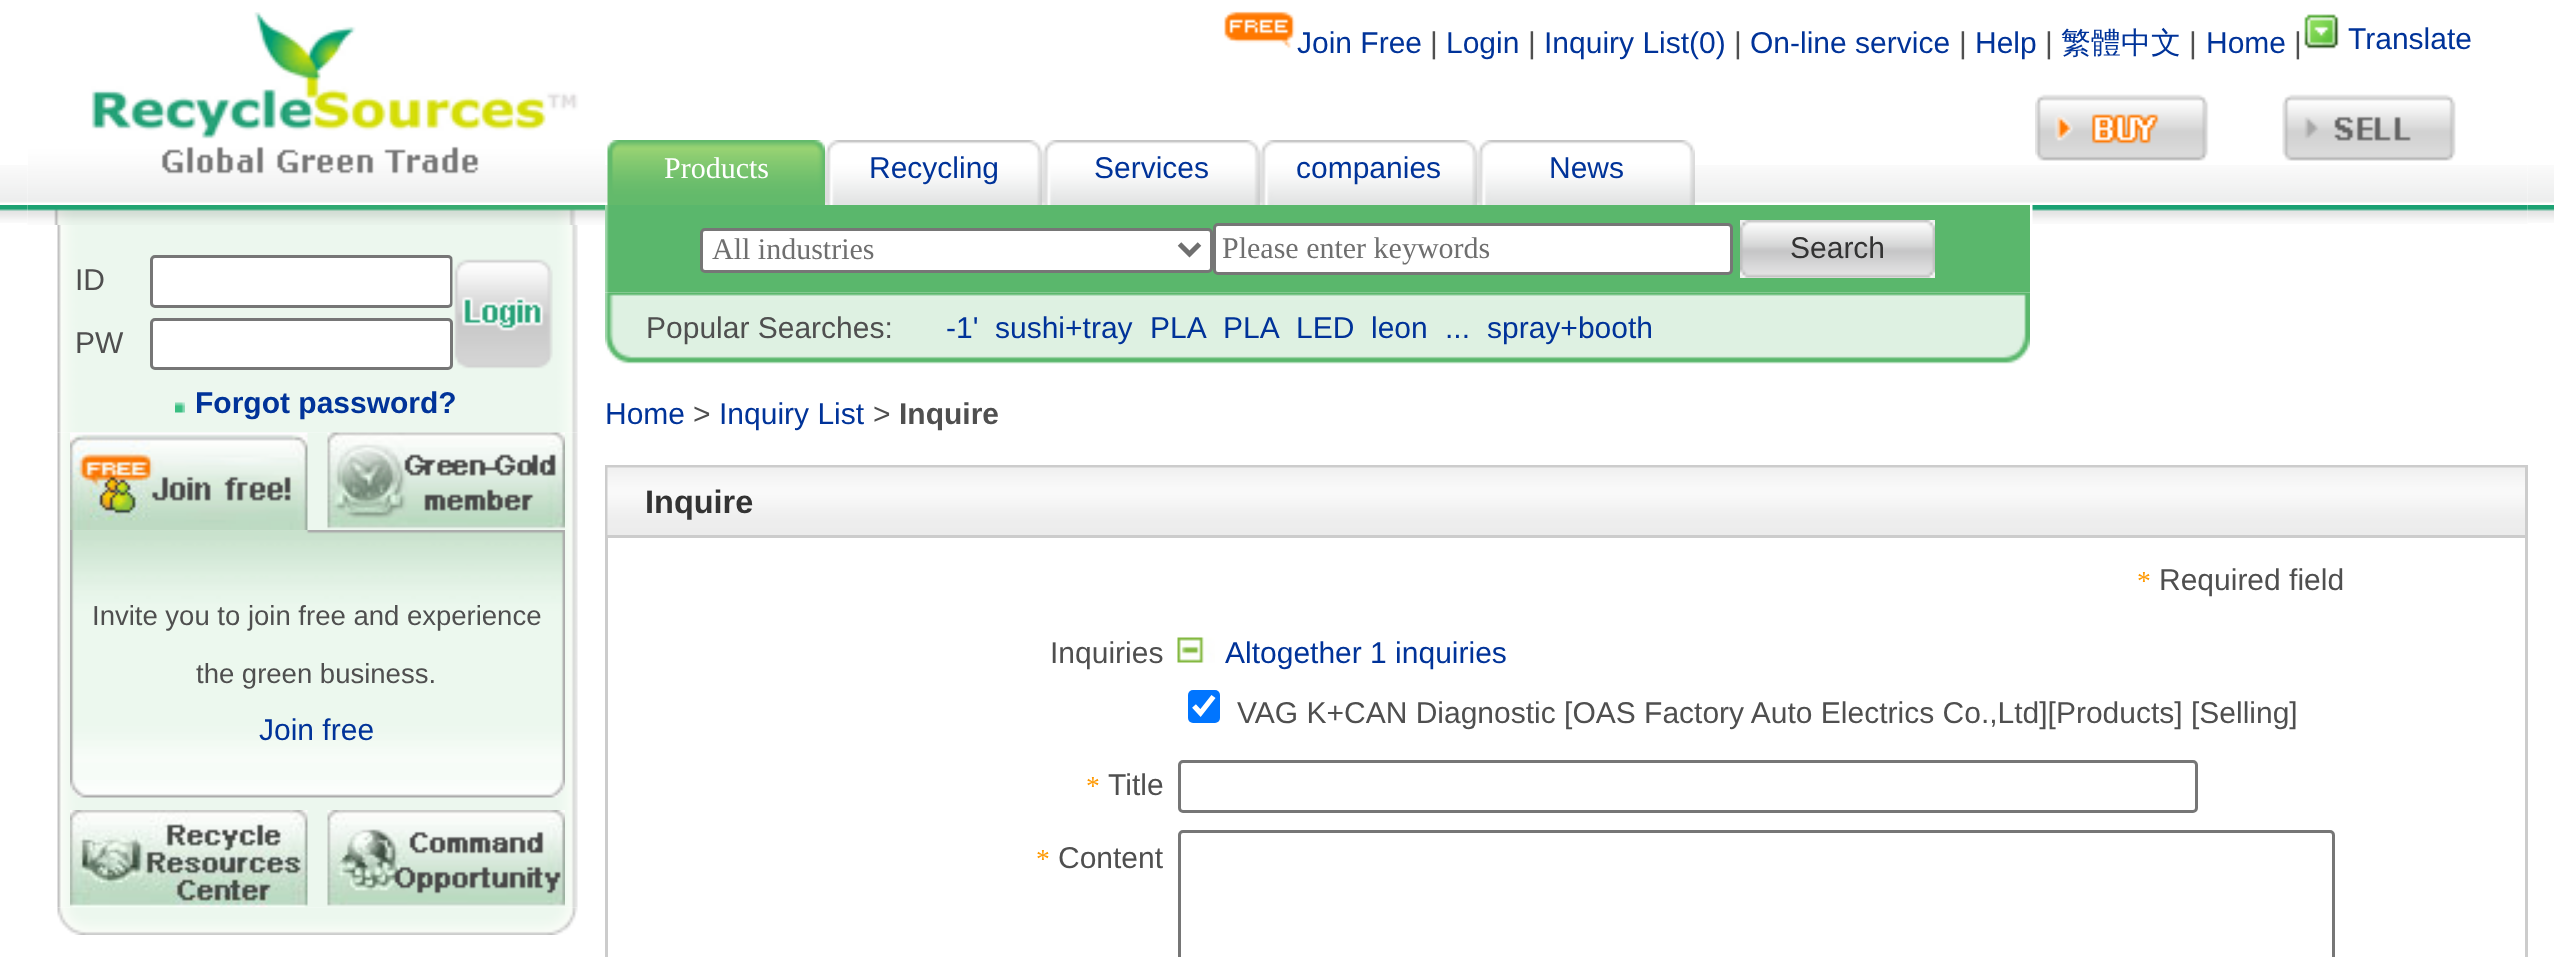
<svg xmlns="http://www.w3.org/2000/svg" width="2554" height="957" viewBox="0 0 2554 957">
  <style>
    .t1 { font: 30px Liberation Sans; fill: #039; }
    .t2 { font: 30px Liberation Sans; fill: #4f4f4f; }
    .t3 { font: 500 30px WenQuanYi Zen Hei; fill: #039; }
    .t4 { font: 30px Liberation Serif; fill: #fff; }
    .t5 { font: bold 30px Liberation Sans; fill: #039; }
    .t6 { font: 27.5px Liberation Sans; fill: #4f4f4f; }
    .t7 { font: 30px Liberation Serif; fill: #6f6f6f; }
    .t8 { font: 30px Liberation Sans; fill: #333; }
    .t9 { font: bold 30px Liberation Sans; fill: #4f4f4f; }
    .t10 { font: bold 32.5px Liberation Sans; fill: #333; }
    .t11 { font: 27.5px Liberation Serif; fill: #f90; }
  </style>
  <rect width="100%" height="100%" fill="#fff"/>
  <image x="0" y="165" width="28" height="38" href="images/1.png"/>
  <image x="27" y="165" width="2501" height="38" href="images/2.png"/>
  <image x="28" y="12" width="577" height="162" href="images/3.png"/>
  <image x="1224" y="11" width="72" height="38" href="images/4.png"/>
  <text x="1297" y="53" class="t1">Join Free</text>
  <text x="1430" y="53" class="t2">|</text>
  <text x="1446" y="53" class="t1">Login</text>
  <text x="1528" y="53" class="t2">|</text>
  <text x="1544" y="53" class="t1">Inquiry List(0)</text>
  <text x="1734" y="53" class="t2">|</text>
  <text x="1750" y="53" class="t1">On-line service</text>
  <text x="1959" y="53" class="t2">|</text>
  <text x="1975" y="53" class="t1">Help</text>
  <text x="2045" y="53" class="t2">|</text>
  <text x="2061" y="53" class="t3">繁體中文</text>
  <text x="2189" y="53" class="t2">|</text>
  <text x="2206" y="53" class="t1">Home</text>
  <text x="2294" y="53" class="t2">|</text>
  <image x="2304" y="14" width="35" height="35" href="images/5.png"/>
  <text x="2348" y="49" class="t1">Translate</text>
  <image x="2035" y="94" width="174" height="67" href="images/6.png"/>
  <image x="2282" y="94" width="174" height="67" href="images/7.png"/>
  <image x="607" y="140" width="218" height="65" href="images/8.png"/>
  <text x="664" y="178" class="t4">Products</text>
  <image x="825" y="140" width="218" height="65" href="images/9.png"/>
  <text x="869" y="178" class="t1">Recycling</text>
  <image x="1042" y="140" width="218" height="65" href="images/10.png"/>
  <text x="1094" y="178" class="t1">Services</text>
  <image x="1260" y="140" width="218" height="65" href="images/11.png"/>
  <text x="1296" y="178" class="t1">companies</text>
  <image x="1477" y="140" width="218" height="65" href="images/12.png"/>
  <text x="1549" y="178" class="t1">News</text>
  <image x="2527" y="165" width="27" height="38" href="images/13.png"/>
  <image x="0" y="205" width="28" height="18" href="images/14.png"/>
  <image x="2527" y="205" width="27" height="18" href="images/15.png"/>
  <image x="27" y="205" width="578" height="20" href="images/16.png"/>
  <image x="57" y="225" width="521" height="208" href="images/17.png"/>
  <text x="75" y="290" class="t2">ID</text>
  <rect x="151.5" y="256.5" width="300" height="50" rx="3.5" fill="#fff" stroke="#767676" stroke-width="3"/>
  <image x="452" y="257" width="101" height="112" href="images/18.png"/>
  <text x="75" y="353" class="t2">PW</text>
  <rect x="151.5" y="319.5" width="300" height="49" rx="3.5" fill="#fff" stroke="#767676" stroke-width="3"/>
  <image x="175" y="402" width="10" height="11" href="images/19.png"/>
  <text x="195" y="413" class="t5">Forgot password?</text>
  <image x="57" y="432" width="521" height="476" href="images/20.png"/>
  <image x="70" y="432" width="238" height="98" href="images/21.png"/>
  <image x="327" y="432" width="238" height="97" href="images/22.png"/>
  <image x="70" y="530" width="495" height="250" href="images/23.png"/>
  <text x="92" y="625" class="t6">Invite you to join free and experience</text>
  <text x="196" y="683" class="t6">the green business.</text>
  <text x="259" y="740" class="t1">Join free</text>
  <image x="70" y="780" width="495" height="18" href="images/24.png"/>
  <image x="70" y="810" width="238" height="98" href="images/25.png"/>
  <image x="327" y="810" width="238" height="96" href="images/26.png"/>
  <image x="57" y="907" width="521" height="28" href="images/27.png"/>
  <image x="2032" y="205" width="496" height="19" href="images/28.png"/>
  <image x="605" y="205" width="1425" height="88" href="images/29.png"/>
  <rect x="701.5" y="229.5" width="510" height="42" rx="3.5" fill="#fff" stroke="#767676" stroke-width="3"/>
  <path d="M1179.5 244L1189.5 254L1199.5 244" fill="none" stroke="#6f6f6f" stroke-width="5"/>
  <text x="712" y="259" class="t7">All industries</text>
  <rect x="1214.5" y="224.5" width="517" height="49" rx="3.5" fill="#fff" stroke="#767676" stroke-width="3"/>
  <text x="1222" y="258" class="t7">Please enter keywords</text>
  <rect x="1740" y="220" width="195" height="58" fill="#efefef"/>
  <image x="1740" y="220" width="195" height="58" href="images/30.png"/>
  <text x="1790" y="258" class="t8">Search</text>
  <image x="605" y="292" width="1425" height="72" href="images/31.png"/>
  <text x="646" y="338" class="t2">Popular Searches:</text>
  <text x="946" y="338" class="t1">-1'</text>
  <text x="995" y="338" class="t1">sushi+tray</text>
  <text x="1150" y="338" class="t1">PLA</text>
  <text x="1223" y="338" class="t1">PLA</text>
  <text x="1296" y="338" class="t1">LED</text>
  <text x="1371" y="338" class="t1">leon</text>
  <text x="1445" y="338" class="t1">...</text>
  <text x="1487" y="338" class="t1">spray+booth</text>
  <text x="605" y="424" class="t1">Home</text>
  <text x="693" y="424" class="t2">&gt;</text>
  <text x="719" y="424" class="t1">Inquiry List</text>
  <text x="873" y="424" class="t2">&gt;</text>
  <text x="899" y="424" class="t9">Inquire</text>
  <rect x="605" y="465" width="1923" height="492" fill="#ccc"/>
  <image x="607" y="467" width="1918" height="68" href="images/32.png"/>
  <text x="645" y="513" class="t10">Inquire</text>
  <rect x="608" y="538" width="1917" height="419" fill="#fff"/>
  <text x="2137" y="590" class="t11">*</text>
  <text x="2159" y="590" class="t2">Required field</text>
  <text x="1050" y="663" class="t2">Inquiries</text>
  <image x="1177" y="637" width="38" height="26" href="images/33.png"/>
  <text x="1225" y="663" class="t1">Altogether 1 inquiries</text>
  <rect x="1188" y="690" width="32" height="33" rx="5" fill="#0075ff"/>
  <path d="M1194 706L1200.5 713L1213.5 696.5" fill="none" stroke="#fff" stroke-width="5.2"/>
  <text x="1237" y="723" class="t2">VAG K+CAN Diagnostic [OAS Factory Auto Electrics Co.,Ltd][Products] [Selling]</text>
  <text x="1086" y="795" class="t11">*</text>
  <text x="1108" y="795" class="t2">Title</text>
  <rect x="1179.5" y="761.5" width="1017" height="50" rx="3.5" fill="none" stroke="#767676" stroke-width="3"/>
  <text x="1036" y="868" class="t11">*</text>
  <text x="1058" y="868" class="t2">Content</text>
  <rect x="1179.5" y="831.5" width="1154" height="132" rx="3.5" fill="none" stroke="#767676" stroke-width="3"/>
</svg>
